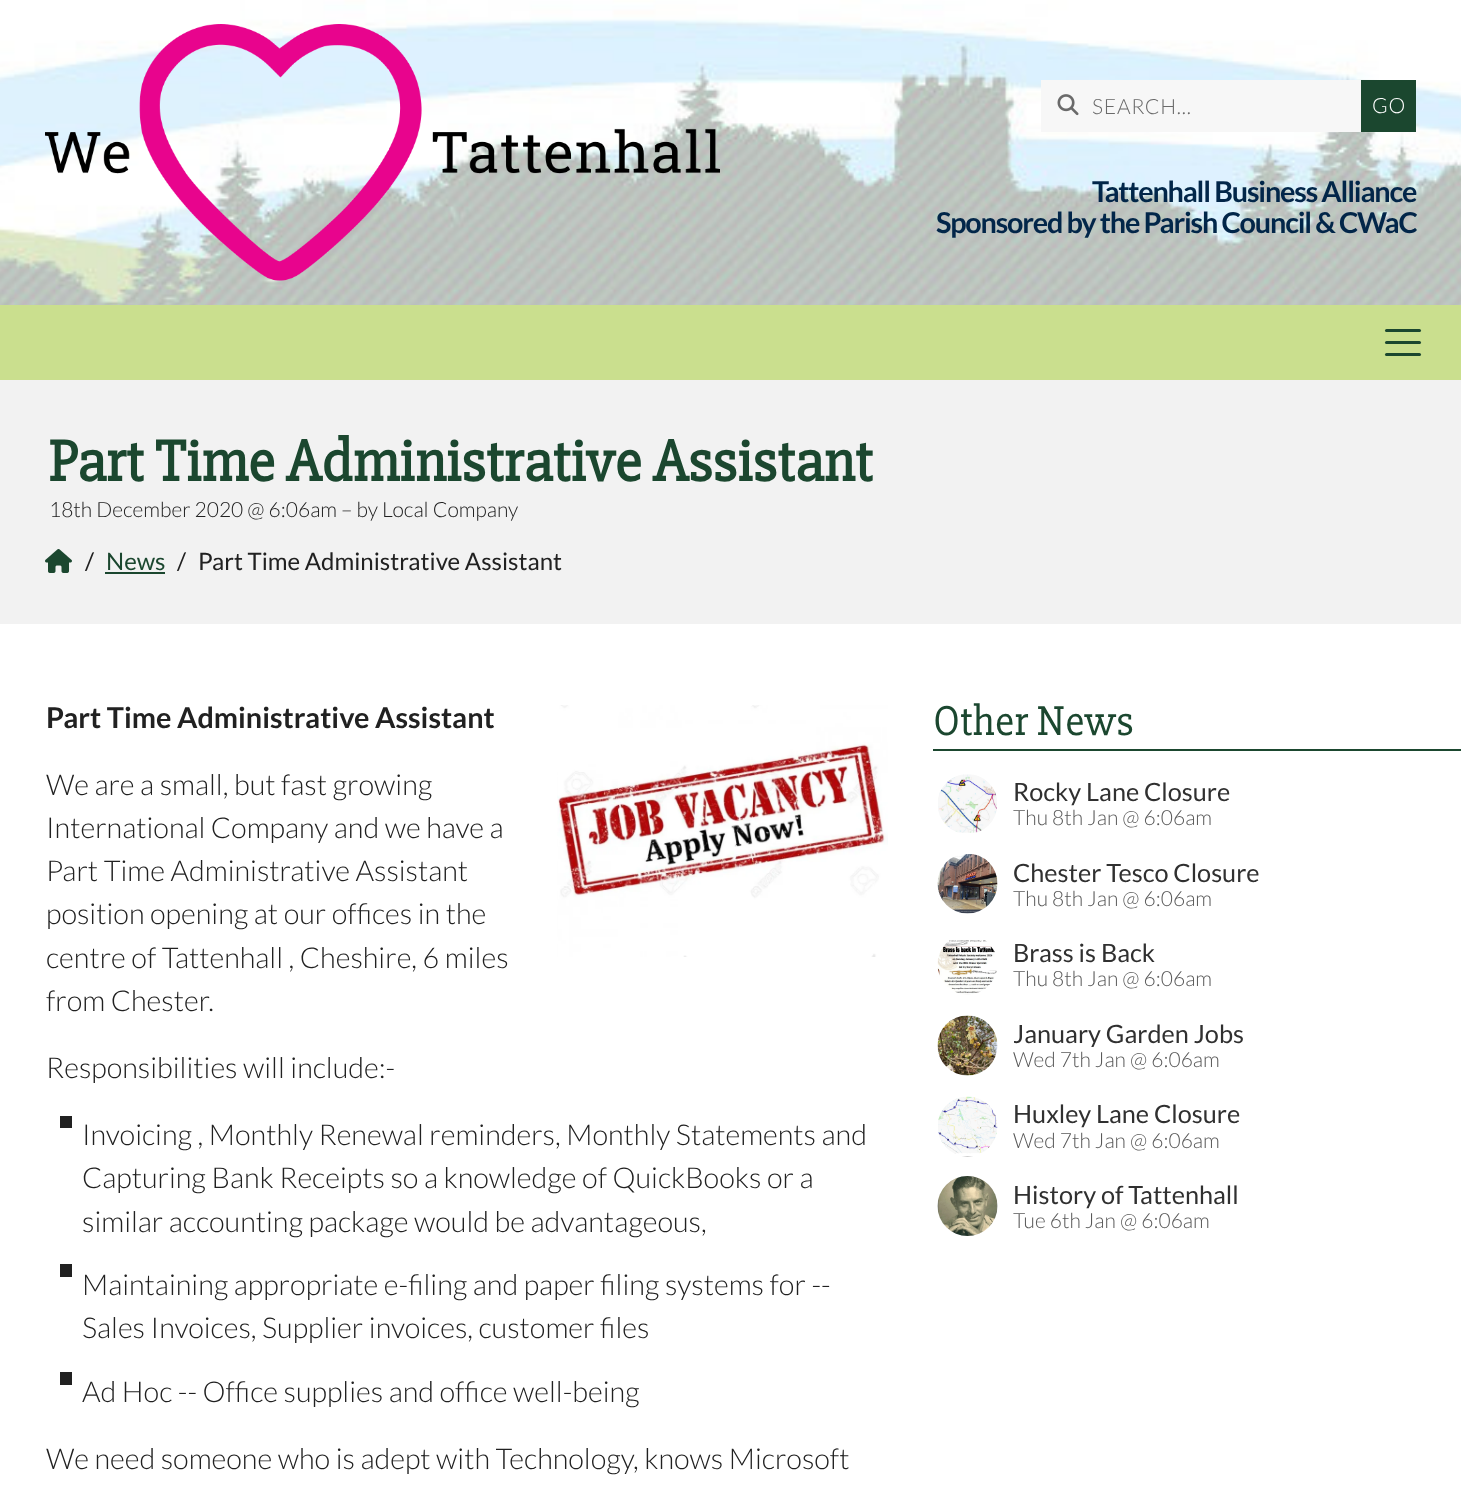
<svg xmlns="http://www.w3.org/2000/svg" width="1461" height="1502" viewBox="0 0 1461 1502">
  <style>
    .t1 { font: 300 21px Lato; letter-spacing: 0.75px; fill: #6a6a6a; }
    .t2 { font: 300 21px Lato; letter-spacing: 0.75px; fill: #fff; }
    .t3 { font: bold 28.8px Lato; letter-spacing: -1.2px; fill: #022649; }
    .t4 { font: bold 60px 'Slabo 27px'; fill: #1b472f; }
    .t5 { font: 300 21px Lato; fill: #212121; }
    .t6 { font: 24px Lato; fill: #212121; }
    .t7 { font: 24px Lato; fill: #1b472f; }
    .t8 { font: bold 28.8px Lato; fill: #212121; }
    .t9 { font: 300 28.8px Lato; fill: #212121; }
    .t10 { font: 43px 'Slabo 27px'; fill: #1b472f; }
    .t11 { font: 25.25px Lato; fill: #303030; }
    .t12 { font: 300 21px Lato; fill: #595959; }
  </style>
  <defs>
    <clipPath id="clip1"><rect x="1014" y="1019" width="447" height="28"/></clipPath>
  </defs>
  <rect width="100%" height="100%" fill="#fff"/>
  <image x="0" y="0" width="1461" height="305" href="images/1.png"/>
  <image x="45" y="24" width="675" height="257" href="images/2.png"/>
  <rect x="1041" y="80" width="320" height="52" fill="#f7f7f7"/>
  <image x="1057" y="94" width="22" height="22" href="images/3.png"/>
  <text x="1092" y="114" class="t1">SEARCH...</text>
  <rect x="1361" y="80" width="55" height="52" fill="#1b472f"/>
  <text x="1372" y="113" class="t2">GO</text>
  <text x="1092" y="202" class="t3">Tattenhall Business Alliance</text>
  <text x="936" y="233" class="t3">Sponsored by the Parish Council &amp; CWaC</text>
  <rect x="0" y="305" width="1461" height="75" fill="#cadf8e"/>
  <rect x="1385" y="329" width="36" height="3" rx="1.5" fill="#1b472f"/>
  <rect x="1385" y="341" width="36" height="3" rx="1.5" fill="#1b472f"/>
  <rect x="1385" y="353" width="36" height="3" rx="1.5" fill="#1b472f"/>
  <rect x="0" y="380" width="1461" height="244" fill="#f2f2f2"/>
  <text x="48" y="481" class="t4">Part Time Administrative Assistant</text>
  <text x="49" y="517" class="t5">18th December 2020 @ 6:06am – by Local Company</text>
  <image x="45" y="549" width="27" height="24" href="images/4.png"/>
  <text x="85" y="570" class="t6">/</text>
  <text x="106" y="570" class="t7">News</text>
  <rect x="105" y="572" width="60" height="2" fill="#1b472f"/>
  <text x="177" y="570" class="t6">/</text>
  <text x="198" y="570" class="t6">Part Time Administrative Assistant</text>
  <text x="46" y="728" class="t8">Part Time Administrative Assistant</text>
  <image x="557" y="705" width="331" height="252" href="images/5.png"/>
  <text x="46" y="795" class="t9">We are a small, but fast growing</text>
  <text x="46" y="838" class="t9">International Company and we have a</text>
  <text x="46" y="881" class="t9">Part Time Administrative Assistant</text>
  <text x="46" y="924" class="t9">position opening at our offices in the</text>
  <text x="46" y="968" class="t9">centre of Tattenhall , Cheshire, 6 miles</text>
  <text x="46" y="1011" class="t9">from Chester.</text>
  <text x="46" y="1078" class="t9">Responsibilities will include:-</text>
  <rect x="60" y="1116" width="12" height="12" fill="#212121"/>
  <text x="82" y="1145" class="t9">Invoicing , Monthly Renewal reminders, Monthly Statements and</text>
  <text x="82" y="1188" class="t9">Capturing Bank Receipts so a knowledge of QuickBooks or a</text>
  <text x="82" y="1232" class="t9">similar accounting package would be advantageous,</text>
  <rect x="60" y="1264" width="12" height="13" fill="#212121"/>
  <text x="82" y="1295" class="t9">Maintaining appropriate e-filing and paper filing systems for --</text>
  <text x="82" y="1338" class="t9">Sales Invoices, Supplier invoices, customer files</text>
  <rect x="60" y="1372" width="12" height="13" fill="#212121"/>
  <text x="82" y="1402" class="t9">Ad Hoc -- Office supplies and office well-being</text>
  <text x="46" y="1469" class="t9">We need someone who is adept with Technology, knows Microsoft</text>
  <rect x="933" y="749" width="528" height="2" fill="#1b472f"/>
  <text x="933" y="735" class="t10">Other News</text>
  <image x="938" y="774" width="59" height="59" href="images/6.png"/>
  <text x="1013" y="801" class="t11">Rocky Lane Closure</text>
  <text x="1013" y="825" class="t12">Thu 8th Jan @ 6:06am</text>
  <image x="937" y="854" width="61" height="60" href="images/7.png"/>
  <text x="1013" y="882" class="t11">Chester Tesco Closure</text>
  <text x="1013" y="906" class="t12">Thu 8th Jan @ 6:06am</text>
  <image x="937" y="940" width="60" height="55" href="images/8.png"/>
  <text x="1013" y="962" class="t11">Brass is Back</text>
  <text x="1013" y="986" class="t12">Thu 8th Jan @ 6:06am</text>
  <image x="937" y="1015" width="61" height="61" href="images/9.png"/>
  <g clip-path="url(#clip1)">
    <text x="1013" y="1043" class="t11">January Garden Jobs</text>
  </g>
  <text x="1013" y="1067" class="t12">Wed 7th Jan @ 6:06am</text>
  <image x="938" y="1096" width="60" height="61" href="images/10.png"/>
  <text x="1013" y="1123" class="t11">Huxley Lane Closure</text>
  <text x="1013" y="1148" class="t12">Wed 7th Jan @ 6:06am</text>
  <image x="937" y="1176" width="61" height="60" href="images/11.png"/>
  <text x="1013" y="1204" class="t11">History of Tattenhall</text>
  <text x="1013" y="1228" class="t12">Tue 6th Jan @ 6:06am</text>
</svg>
